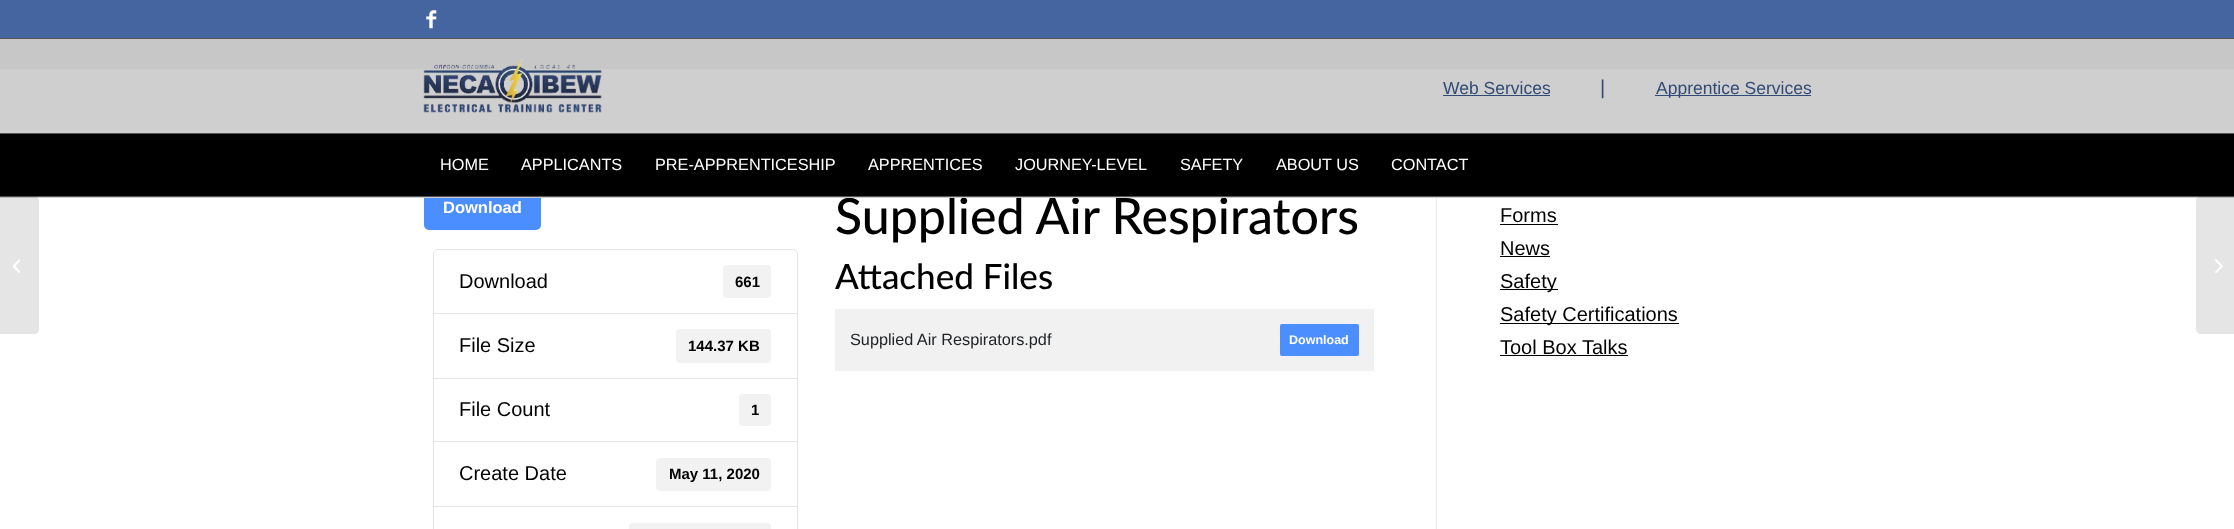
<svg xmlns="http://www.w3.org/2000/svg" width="2234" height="529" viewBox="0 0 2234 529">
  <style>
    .t1 { font: 500 50px Lato; fill: #000; }
    .t2 { font: 17.5px Liberation Sans; fill: #324a76; }
    .t3 { font: 20px Liberation Sans; fill: #324a76; }
    .t4 { font: 16.25px Liberation Sans; fill: #fff; }
    .t5 { font: bold 16.5px Liberation Sans; fill: #fff; }
    .t6 { font: 20px Liberation Sans; fill: #000; }
    .t7 { font: bold 15px Liberation Sans; fill: #000; }
    .t8 { font: 500 35px Lato; fill: #000; }
    .t9 { font: 16.25px Liberation Sans; fill: #212529; }
    .t10 { font: bold 12.5px Liberation Sans; fill: #fff; }
  </style>
  <rect width="100%" height="100%" fill="#666"/>
  <rect x="0" y="0" width="2234" height="38" fill="#4565a1"/>
  <rect x="0" y="38" width="2234" height="1" fill="#555"/>
  <image x="426" y="10" width="11" height="19" href="images/1.png"/>
  <rect x="0" y="70" width="2234" height="459" fill="#fff"/>
  <rect x="0" y="69" width="2234" height="1" fill="#ebebeb"/>
  <rect x="1436" y="70" width="1" height="459" fill="#ebebeb"/>
  <rect x="424" y="185" width="117" height="45" rx="5" fill="#4a8eff"/>
  <text x="835" y="234" class="t1">Supplied Air Respirators</text>
  <rect x="0" y="39" width="2234" height="159" fill="#ccccccf2"/>
  <rect x="0" y="196" width="2234" height="1" fill="#555"/>
  <image x="423" y="59" width="179" height="54" href="images/2.png"/>
  <text x="1443" y="94" class="t2">Web Services</text>
  <rect x="1443" y="95" width="107" height="1" fill="#324a76"/>
  <text x="1600" y="94" class="t3">|</text>
  <rect x="1655" y="95" width="156" height="1" fill="#324a76"/>
  <text x="1656" y="94" class="t2">Apprentice Services</text>
  <rect x="0" y="134" width="2234" height="62" fill="#000"/>
  <rect x="0" y="133" width="2234" height="1" fill="#555"/>
  <text x="440" y="170" class="t4">HOME</text>
  <text x="521" y="170" class="t4">APPLICANTS</text>
  <text x="655" y="170" class="t4">PRE-APPRENTICESHIP</text>
  <text x="868" y="170" class="t4">APPRENTICES</text>
  <text x="1015" y="170" class="t4">JOURNEY-LEVEL</text>
  <text x="1180" y="170" class="t4">SAFETY</text>
  <text x="1276" y="170" class="t4">ABOUT US</text>
  <text x="1391" y="170" class="t4">CONTACT</text>
  <path d="M0 196H34C37 196 39 198 39 201V329C39 332 37 334 34 334H0Z" fill="#0000001a"/>
  <image x="13" y="259" width="7" height="14" href="images/3.png"/>
  <text x="443" y="213" class="t5">Download</text>
  <path d="M438 249.5H793C795.5 249.5 797.5 251.5 797.5 254V313.5H433.5V254C433.5 251.5 435.5 249.5 438 249.5Z" fill="none" stroke="#e5e5e5"/>
  <text x="459" y="288" class="t6">Download</text>
  <rect x="723" y="265" width="48" height="33" rx="4" fill="#f2f2f2"/>
  <text x="735" y="287" class="t7">661</text>
  <rect x="433.5" y="313.5" width="364" height="65" fill="none" stroke="#e5e5e5"/>
  <text x="459" y="352" class="t6">File Size</text>
  <rect x="676" y="329" width="95" height="34" rx="4" fill="#f2f2f2"/>
  <text x="688" y="351" class="t7">144.37 KB</text>
  <rect x="433.5" y="378.5" width="364" height="64" fill="none" stroke="#e5e5e5"/>
  <text x="459" y="416" class="t6">File Count</text>
  <rect x="739" y="394" width="32" height="32" rx="4" fill="#f2f2f2"/>
  <text x="751" y="415" class="t7">1</text>
  <rect x="434" y="442" width="363" height="1" fill="#fff"/>
  <rect x="433.5" y="441.5" width="364" height="66" fill="none" stroke="#e5e5e5"/>
  <text x="459" y="480" class="t6">Create Date</text>
  <rect x="656" y="458" width="115" height="33" rx="4" fill="#f2f2f2"/>
  <text x="669" y="479" class="t7">May 11, 2020</text>
  <rect x="434" y="507" width="363" height="1" fill="#fff"/>
  <rect x="433.5" y="506.5" width="364" height="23" fill="none" stroke="#e5e5e5"/>
  <rect x="629" y="523" width="142" height="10" rx="4" fill="#f2f2f2"/>
  <text x="835" y="289" class="t8">Attached Files</text>
  <rect x="835" y="309" width="539" height="62" fill="#f1f1f1"/>
  <text x="850" y="345" class="t9">Supplied Air Respirators.pdf</text>
  <rect x="1280" y="324" width="79" height="32" rx="2" fill="#4a8eff"/>
  <text x="1289" y="344" class="t10">Download</text>
  <text x="1500" y="222" class="t6">Forms</text>
  <rect x="1500" y="224" width="58" height="1" fill="#000"/>
  <text x="1500" y="255" class="t6">News</text>
  <rect x="1500" y="256" width="50" height="1" fill="#000"/>
  <rect x="1500" y="289" width="58" height="1" fill="#000"/>
  <text x="1500" y="288" class="t6">Safety</text>
  <rect x="1500" y="323" width="179" height="1" fill="#000"/>
  <text x="1500" y="321" class="t6">Safety Certifications</text>
  <text x="1500" y="354" class="t6">Tool Box Talks</text>
  <rect x="1500" y="355" width="128" height="1" fill="#000"/>
  <path d="M2201 196H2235V334H2201C2198 334 2196 332 2196 329V201C2196 198 2198 196 2201 196Z" fill="#0000001a"/>
  <image x="2215" y="259" width="8" height="14" href="images/4.png"/>
</svg>
